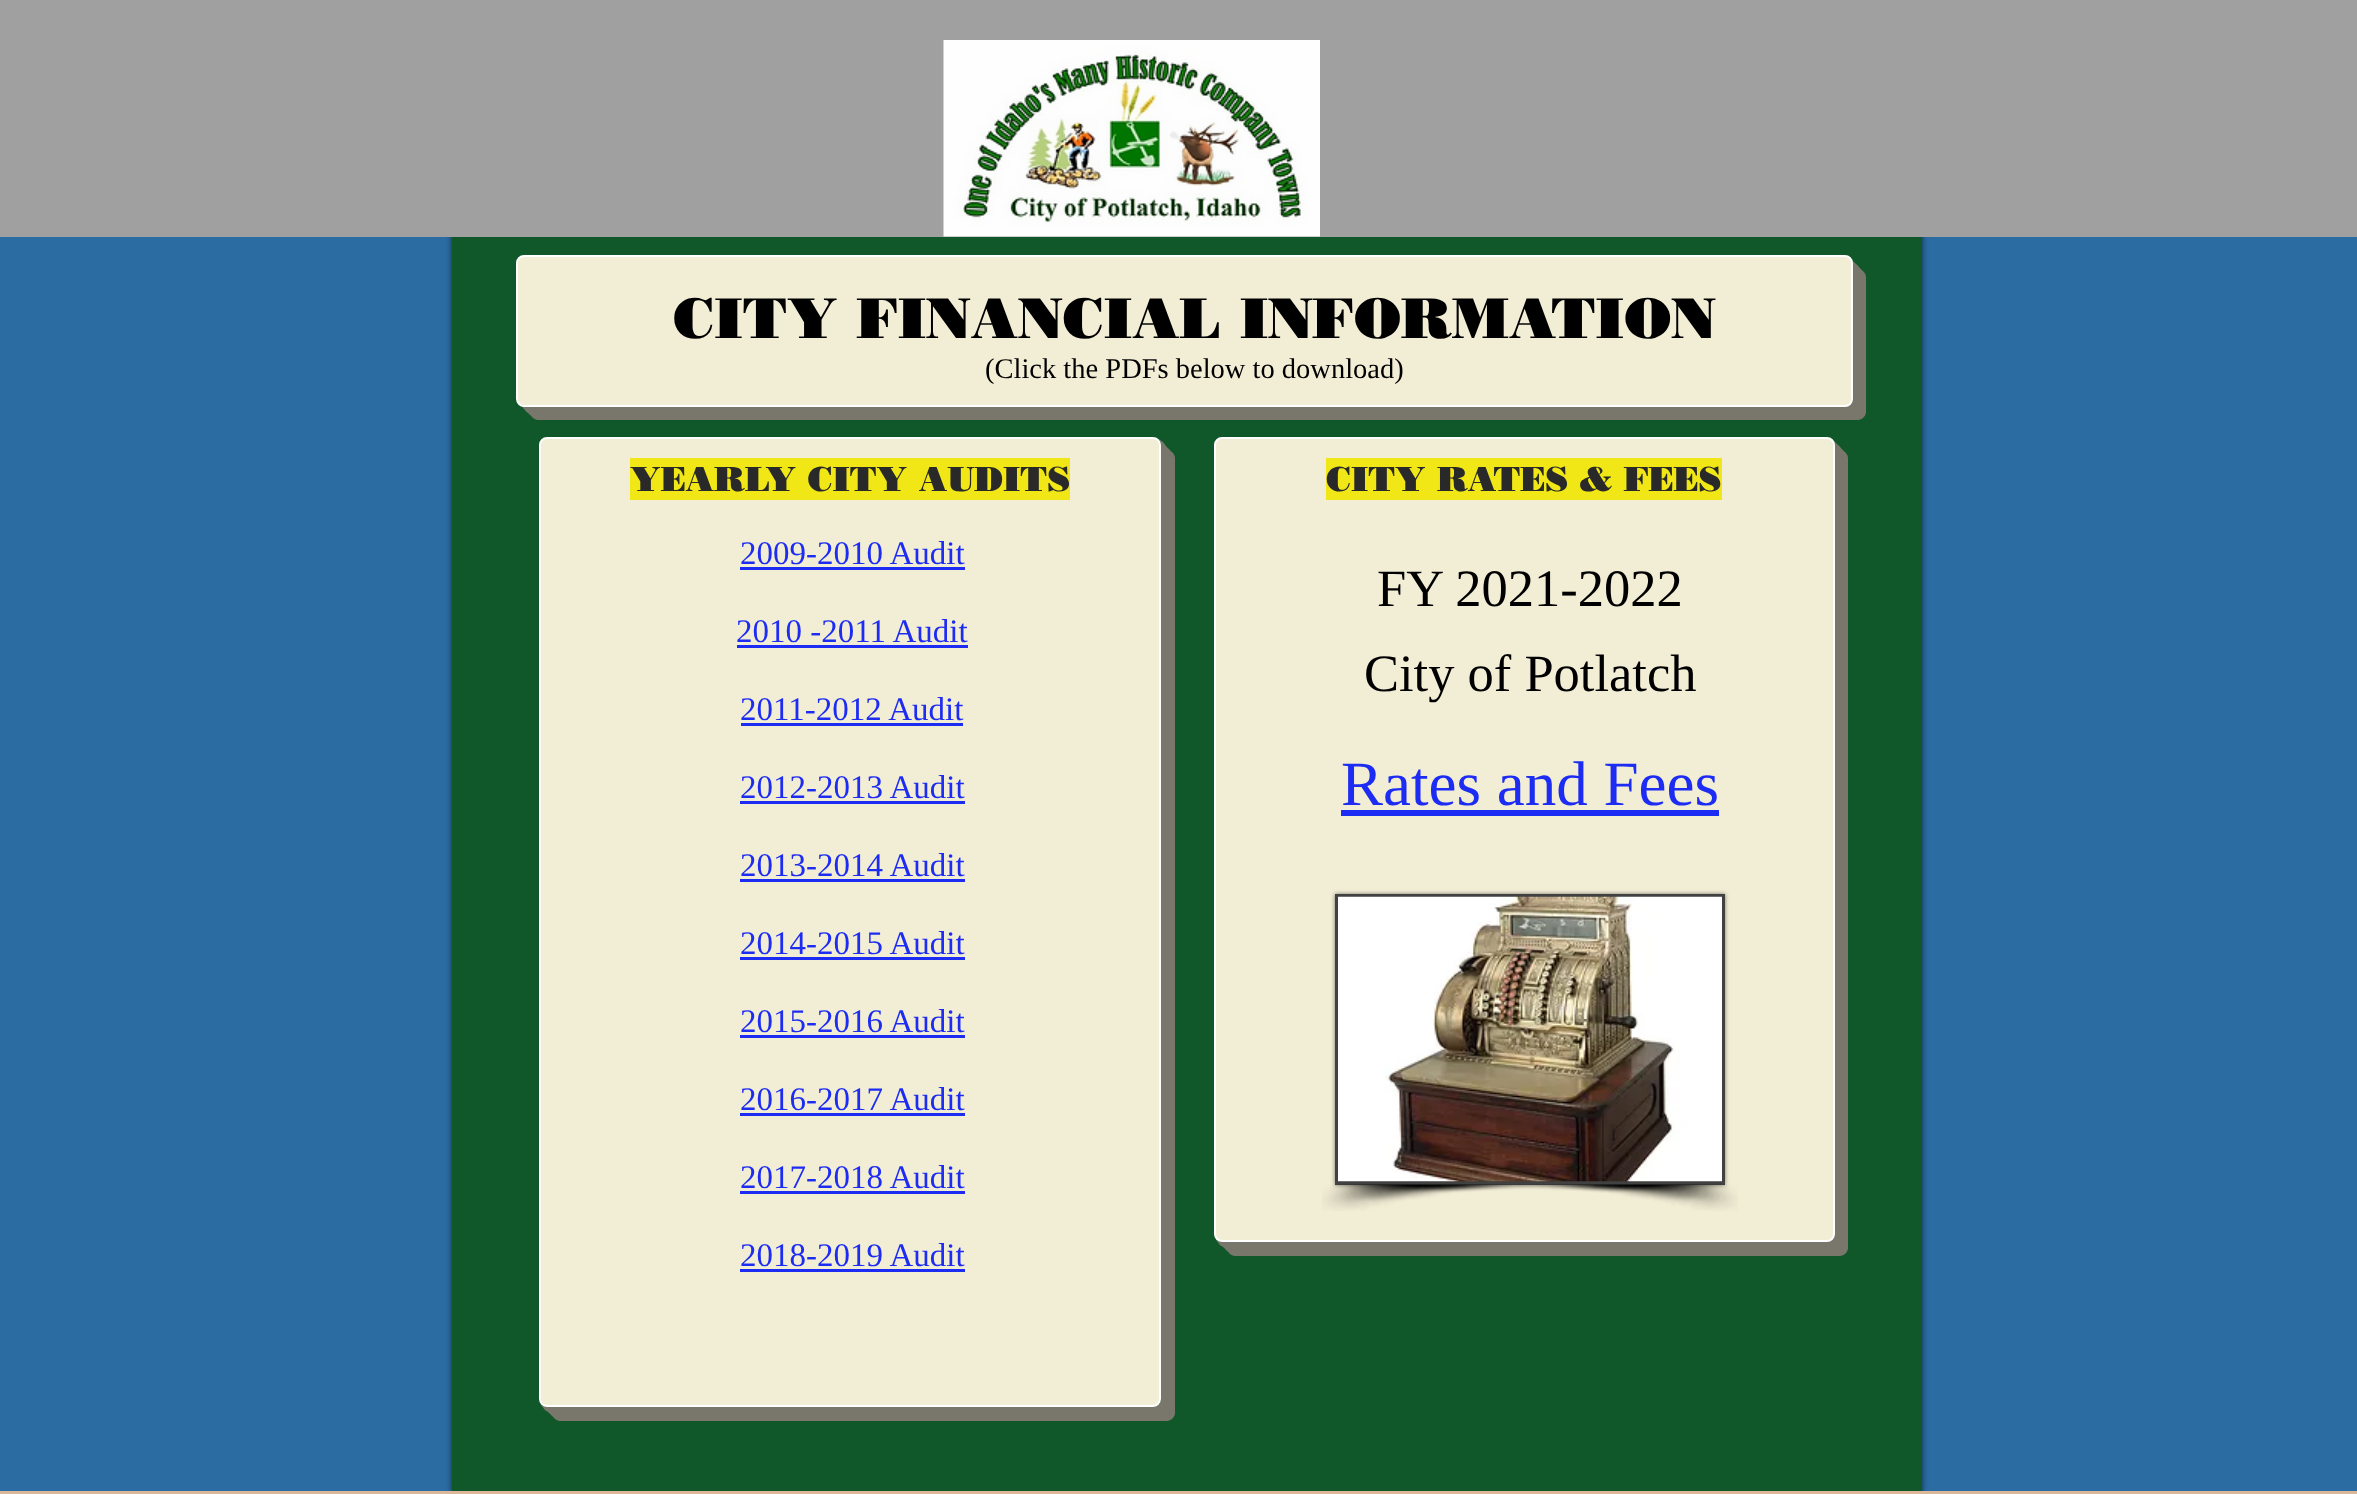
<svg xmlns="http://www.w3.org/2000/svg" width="2357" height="1494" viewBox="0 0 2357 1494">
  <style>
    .t1 { font: 900 57px 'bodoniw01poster'; fill: #000; }
    .t2 { font: 28.5px Liberation Serif; fill: #000; }
    .t3 { font: 900 34.5px 'bodoniw01poster'; fill: #292929; }
    .t4 { font: 33px Liberation Serif; fill: #1d2cf3; }
    .t5 { font: 52.5px Liberation Serif; fill: #000; }
    .t6 { font: 63px Liberation Serif; fill: #1d2cf3; }
  </style>
  <rect width="100%" height="100%" fill="#2b6ca3"/>
  <rect x="452" y="222" width="1470" height="1271" fill="#00000099" filter="blur(3px)"/>
  <rect x="0" y="0" width="2357" height="237" fill="#a0a0a0"/>
  <image x="943" y="40" width="377" height="197" href="images/1.png"/>
  <rect x="452" y="237" width="1470" height="1254" fill="#105729"/>
  <path d="M530 406V412C530 416 534 420 538 420H1858C1862 420 1866 416 1866 412V277C1866 273 1862 269 1858 269H1852V399C1852 403 1849 406 1845 406Z" fill="#79776b"/>
  <path d="M527 406V409C527 413 531 417 535 417H1855C1859 417 1863 413 1863 409V274C1863 270 1859 266 1855 266H1852V399C1852 403 1849 406 1845 406Z" fill="#79776b"/>
  <path d="M524 406C524 411 528 414 532 414H1852C1856 414 1860 410 1860 406V271C1860 267 1857 263 1852 263V399C1852 403 1849 406 1845 406Z" fill="#79776b"/>
  <path d="M522 406C523 409 526 411 529 411H1849C1853 411 1857 407 1857 403V268C1857 265 1855 262 1852 261V376C1852 379 1858 406 1845 406Z" fill="#79776b"/>
  <path d="M521 406C522 407 524 408 526 408H1846C1850 408 1854 404 1854 400V265C1854 263 1853 261 1852 260V262V399C1852 403 1849 406 1845 406H524Z" fill="#79776b"/>
  <rect x="517" y="256" width="1335" height="150" rx="7" fill="#f2edd5" stroke="#fff" stroke-width="2"/>
  <text x="673" y="338" class="t1">CITY FINANCIAL INFORMATION</text>
  <text x="985" y="378" class="t2">(Click the PDFs below to download)</text>
  <path d="M552 1407V1413C552 1417 556 1421 560 1421H1167C1171 1421 1175 1417 1175 1413V458C1175 454 1171 450 1167 450H1161V1400C1161 1404 1158 1407 1154 1407Z" fill="#79776b"/>
  <path d="M549 1407V1410C549 1414 553 1418 557 1418H1164C1168 1418 1172 1414 1172 1410V455C1172 451 1168 447 1164 447H1161V1400C1161 1404 1158 1407 1154 1407Z" fill="#79776b"/>
  <path d="M546 1407C546 1411 550 1415 554 1415H1161C1165 1415 1169 1411 1169 1407V452C1169 448 1165 444 1161 444V1400C1161 1404 1158 1407 1154 1407Z" fill="#79776b"/>
  <path d="M543 1407C544 1410 547 1412 551 1412H1158C1162 1412 1166 1408 1166 1404V449C1166 445 1164 442 1161 441V444V1400C1161 1404 1158 1407 1154 1407H546Z" fill="#79776b"/>
  <path d="M541 1405C543 1408 545 1409 548 1409H1155C1159 1409 1163 1405 1163 1401V446C1163 443 1162 441 1159 439C1160 441 1161 442 1161 444V1400C1161 1404 1158 1407 1154 1407H546C544 1407 543 1406 541 1405Z" fill="#79776b"/>
  <rect x="540" y="438" width="620" height="968" rx="7" fill="#f2edd5" stroke="#fff" stroke-width="2"/>
  <rect x="630" y="458" width="440" height="42" fill="#f2e716"/>
  <text x="630" y="491" class="t3">YEARLY CITY AUDITS</text>
  <text x="740" y="564" class="t4">2009-2010 Audit</text>
  <rect x="740" y="567" width="225" height="3" fill="#1d2cf3"/>
  <text x="736" y="642" class="t4">2010 -2011 Audit</text>
  <rect x="737" y="645" width="231" height="3" fill="#1d2cf3"/>
  <text x="740" y="720" class="t4">2011-2012 Audit</text>
  <rect x="741" y="723" width="222" height="3" fill="#1d2cf3"/>
  <text x="740" y="798" class="t4">2012-2013 Audit</text>
  <rect x="740" y="801" width="225" height="3" fill="#1d2cf3"/>
  <text x="740" y="876" class="t4">2013-2014 Audit</text>
  <rect x="740" y="879" width="225" height="3" fill="#1d2cf3"/>
  <text x="740" y="954" class="t4">2014-2015 Audit</text>
  <rect x="740" y="957" width="225" height="3" fill="#1d2cf3"/>
  <text x="740" y="1032" class="t4">2015-2016 Audit</text>
  <rect x="740" y="1035" width="225" height="3" fill="#1d2cf3"/>
  <text x="740" y="1110" class="t4">2016-2017 Audit</text>
  <rect x="740" y="1113" width="225" height="3" fill="#1d2cf3"/>
  <text x="740" y="1188" class="t4">2017-2018 Audit</text>
  <rect x="740" y="1191" width="225" height="3" fill="#1d2cf3"/>
  <text x="740" y="1266" class="t4">2018-2019 Audit</text>
  <rect x="740" y="1269" width="225" height="3" fill="#1d2cf3"/>
  <path d="M1227 1242V1248C1227 1252 1231 1256 1235 1256H1840C1844 1256 1848 1252 1848 1248V458C1848 454 1844 450 1840 450H1834V1234C1834 1239 1831 1242 1827 1242Z" fill="#79776b"/>
  <path d="M1224 1242V1245C1224 1249 1228 1253 1232 1253H1837C1841 1253 1845 1249 1845 1245V455C1845 451 1841 447 1837 447H1834V1234C1834 1239 1831 1242 1827 1242Z" fill="#79776b"/>
  <path d="M1221 1242C1221 1246 1225 1250 1229 1250H1834C1838 1250 1842 1246 1842 1242V452C1842 448 1839 444 1834 444V1234C1834 1239 1831 1242 1827 1242Z" fill="#79776b"/>
  <path d="M1218 1242C1219 1245 1222 1247 1226 1247H1831C1835 1247 1839 1243 1839 1239V449C1839 446 1837 443 1834 442V444V1234C1834 1239 1831 1242 1827 1242H1221Z" fill="#79776b"/>
  <path d="M1216 1240C1218 1243 1220 1244 1223 1244H1828C1832 1244 1836 1240 1836 1236V446C1836 444 1835 442 1833 440C1834 441 1834 443 1834 444V1234C1834 1239 1831 1242 1827 1242H1221C1219 1242 1218 1241 1216 1240Z" fill="#79776b"/>
  <rect x="1215" y="438" width="619" height="803" rx="7" fill="#f2edd5" stroke="#fff" stroke-width="2"/>
  <rect x="1326" y="458" width="396" height="42" fill="#f2e716"/>
  <text x="1326" y="491" class="t3">CITY RATES &amp; FEES</text>
  <text x="1377" y="606" class="t5">FY 2021-2022</text>
  <text x="1364" y="691" class="t5">City of Potlatch</text>
  <text x="1341" y="805" class="t6">Rates and Fees</text>
  <rect x="1341" y="810" width="378" height="6" fill="#1d2cf3"/>
  <rect x="1335" y="894" width="390" height="291" fill="#00000080" filter="blur(2px)"/>
  <rect x="1335" y="894" width="390" height="291" fill="#414141"/>
  <image x="1338" y="896" width="384" height="286" href="images/2.png"/>
  <image x="1322" y="1184" width="223" height="27" href="images/3.png"/>
  <image x="1517" y="1184" width="221" height="27" href="images/4.png"/>
  <rect x="0" y="1491" width="2357" height="3" fill="#dbb89a"/>
</svg>
